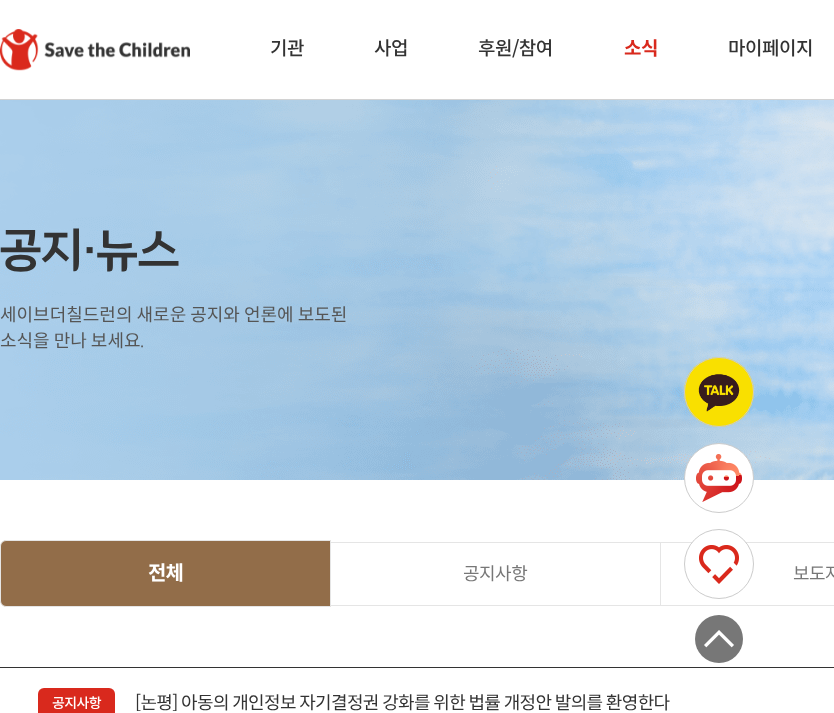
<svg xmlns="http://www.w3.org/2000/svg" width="834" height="713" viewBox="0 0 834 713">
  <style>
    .t1 { font: 500 19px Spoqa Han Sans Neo; letter-spacing: -0.5px; fill: #333; }
    .t2 { font: bold 19px Spoqa Han Sans Neo; letter-spacing: -0.5px; fill: #d9291d; }
    .t3 { font: 46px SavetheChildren; fill: #333; }
    .t4 { font: 18px Spoqa Han Sans Neo; fill: #555; }
    .t5 { font: bold 20px Spoqa Han Sans Neo; letter-spacing: -1px; fill: #fff; }
    .t6 { font: 18px Spoqa Han Sans Neo; letter-spacing: -0.5px; fill: #777; }
    .t7 { font: 500 14px Spoqa Han Sans Neo; letter-spacing: -0.65px; fill: #fff; }
    .t8 { font: 18px Spoqa Han Sans Neo; letter-spacing: -0.65px; fill: #333; }
  </style>
  <rect width="100%" height="100%" fill="#fff"/>
  <rect x="0" y="99" width="834" height="1" fill="#d2d2d2"/>
  <image x="0" y="29" width="190" height="42" href="images/1.png"/>
  <text x="270" y="55" class="t1">기관</text>
  <text x="374" y="55" class="t1">사업</text>
  <text x="478" y="55" class="t1">후원/참여</text>
  <text x="624" y="55" class="t2">소식</text>
  <text x="728" y="55" class="t1">마이페이지</text>
  <image x="0" y="100" width="834" height="380" href="images/2.png"/>
  <text x="0" y="264" class="t3">공지·뉴스</text>
  <text x="0" y="321" class="t4">세이브더칠드런의 새로운 공지와 언론에 보도된</text>
  <text x="0" y="347" class="t4">소식을 만나 보세요.</text>
  <path d="M6 540.5H330.5V606.5H6C3 606.5 .5 604 .5 601V546C.5 543 3 540.5 6 540.5Z" fill="#926d49" stroke="#e5e5e5"/>
  <text x="148" y="580" class="t5">전체</text>
  <rect x="331" y="542" width="503" height="1" fill="#e5e5e5"/>
  <rect x="660" y="542" width="1" height="64" fill="#e5e5e5"/>
  <rect x="331" y="605" width="503" height="1" fill="#e5e5e5"/>
  <text x="463" y="580" class="t6">공지사항</text>
  <text x="793" y="580" class="t6">보도자</text>
  <rect x="0" y="667" width="834" height="1" fill="#333"/>
  <rect x="38" y="688" width="77" height="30" rx="6" fill="#d9291d"/>
  <text x="52" y="708" class="t7">공지사항</text>
  <text x="135" y="709" class="t8">[논평] 아동의 개인정보 자기결정권 강화를 위한 법률 개정안 발의를 환영한다</text>
  <circle cx="719" cy="392" r="35" fill="#f9e000"/>
  <image x="692" y="365" width="54" height="54" href="images/3.png"/>
  <circle cx="719" cy="392" r="34.5" fill="none" stroke="#ccc"/>
  <circle cx="719" cy="478" r="34.5" fill="#fff" stroke="#ccc"/>
  <image x="696" y="454" width="46" height="48" href="images/4.png"/>
  <circle cx="719" cy="564" r="34.5" fill="#fff" stroke="#ccc"/>
  <image x="699" y="545" width="40" height="39" href="images/5.png"/>
  <circle cx="719" cy="639" r="24" fill="#777"/>
  <image x="704" y="630" width="30" height="18" href="images/6.png"/>
</svg>
